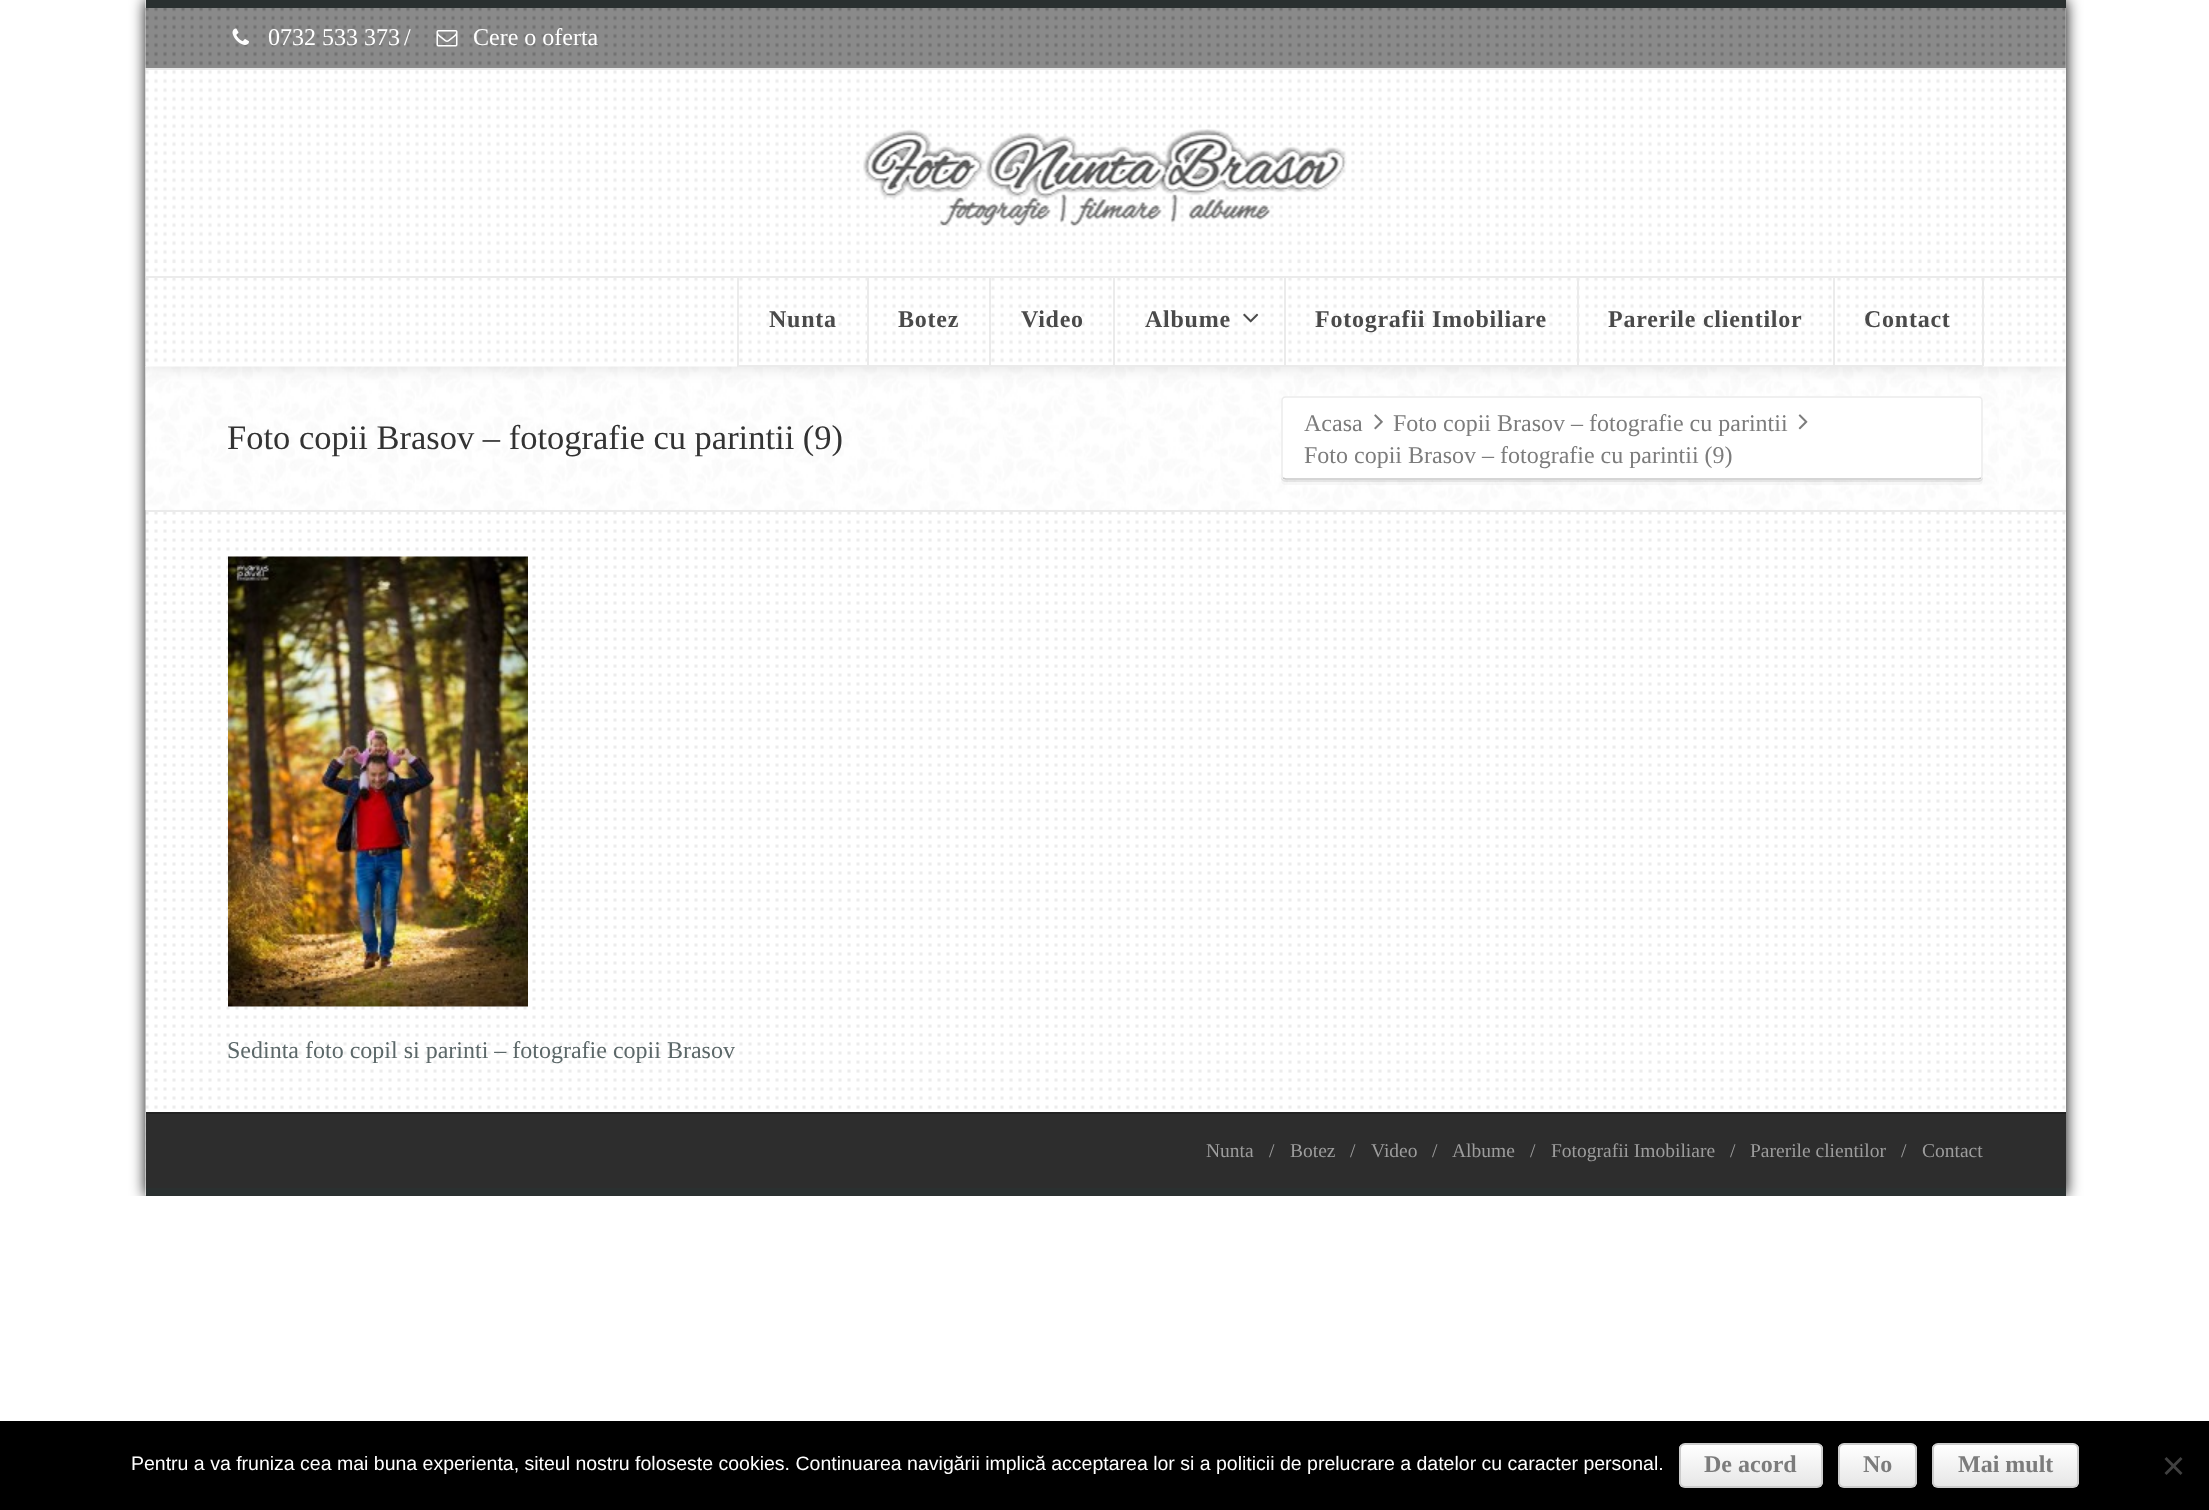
<svg xmlns="http://www.w3.org/2000/svg" width="2209" height="1510" viewBox="0 0 2209 1510">
  <style>
    .t1 { font: 24px Liberation Serif; fill: #fff; }
    .t2 { font: bold 24px Liberation Serif; letter-spacing: 0.75px; fill: #4a4a4a; }
    .t3 { font: 34.5px Liberation Serif; fill: #333; }
    .t4 { font: 24px Liberation Serif; fill: #7c7c7c; }
    .t5 { font: 24px Liberation Serif; fill: #5c6869; }
    .t6 { font: 19.5px Liberation Serif; fill: #9c9c9c; }
    .t7 { font: 19.5px Liberation Sans; fill: #fff; }
    .t8 { font: bold 24px Liberation Serif; fill: #7c7c7c; }
  </style>
  <defs>
    <clipPath id="clip1"><rect x="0" y="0" width="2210" height="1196"/></clipPath>
    <clipPath id="clip2"><rect x="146" y="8" width="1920" height="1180"/></clipPath>
    <clipPath id="clip3"><rect x="1679" y="1443" width="144" height="45" rx="6"/></clipPath>
    <linearGradient id="g1" gradientUnits="userSpaceOnUse" x1="1751" y1="1445" x2="1751" y2="1487"><stop offset="0" stop-color="#fff"/><stop offset="1" stop-color="#e6e6e6"/></linearGradient>
    <clipPath id="clip4"><rect x="1838" y="1443" width="79" height="45" rx="6"/></clipPath>
    <linearGradient id="g2" gradientUnits="userSpaceOnUse" x1="1877" y1="1445" x2="1877" y2="1487"><stop offset="0" stop-color="#fff"/><stop offset="1" stop-color="#e6e6e6"/></linearGradient>
    <clipPath id="clip5"><rect x="1932" y="1443" width="147" height="45" rx="6"/></clipPath>
    <linearGradient id="g3" gradientUnits="userSpaceOnUse" x1="2006" y1="1445" x2="2006" y2="1487"><stop offset="0" stop-color="#fff"/><stop offset="1" stop-color="#e6e6e6"/></linearGradient>
  </defs>
  <rect width="100%" height="100%" fill="#fff"/>
  <g clip-path="url(#clip1)">
    <rect x="146" y="0" width="1920" height="1196" fill="#000" filter="blur(7.5px)"/>
  </g>
  <rect x="2065" y="512" width="1" height="600" fill="#fff"/>
  <image x="145" y="0" width="1921" height="1196" href="images/1.png"/>
  <rect x="146" y="0" width="1920" height="8" fill="#2a3030"/>
  <rect x="146" y="1188" width="1920" height="8" fill="#2a3030"/>
  <rect x="2065" y="366" width="1" height="144" fill="#f9f9f9"/>
  <image x="145" y="366" width="1920" height="144" href="images/8.png"/>
  <g clip-path="url(#clip2)">
    <rect x="146" y="11" width="1920" height="358" fill="#0000001a" filter="blur(7.5px)"/>
  </g>
  <rect x="146" y="70" width="1920" height="296" fill="#fff"/>
  <image x="145" y="8" width="1921" height="359" href="images/2.png"/>
  <rect x="146" y="68" width="1920" height="2" fill="#ebebeb"/>
  <rect x="2065" y="8" width="1" height="60" fill="#b5b5b5"/>
  <image x="145" y="8" width="1921" height="60" href="images/3.png"/>
  <image x="232" y="28" width="17" height="17" href="images/4.png"/>
  <text x="268" y="45" class="t1">0732 533 373</text>
  <text x="404" y="45" class="t1">/</text>
  <image x="436" y="30" width="22" height="17" href="images/5.png"/>
  <text x="473" y="45" class="t1">Cere o oferta</text>
  <image x="863" y="129" width="484" height="97" href="images/6.png"/>
  <rect x="146" y="276" width="1920" height="2" fill="#ebebeb"/>
  <rect x="867" y="278" width="2" height="88" fill="#ebebeb"/>
  <rect x="737" y="365" width="132" height="2" fill="#ebebeb"/>
  <rect x="737" y="278" width="2" height="88" fill="#ebebeb"/>
  <text x="769" y="327" class="t2">Nunta</text>
  <rect x="989" y="278" width="2" height="88" fill="#ebebeb"/>
  <rect x="869" y="365" width="121" height="2" fill="#ebebeb"/>
  <text x="898" y="327" class="t2">Botez</text>
  <rect x="1113" y="278" width="2" height="88" fill="#ebebeb"/>
  <rect x="990" y="365" width="125" height="2" fill="#ebebeb"/>
  <text x="1021" y="327" class="t2">Video</text>
  <rect x="1284" y="278" width="2" height="88" fill="#ebebeb"/>
  <rect x="1115" y="365" width="171" height="2" fill="#ebebeb"/>
  <text x="1145" y="327" class="t2">Albume</text>
  <image x="1243" y="313" width="16" height="10" href="images/7.png"/>
  <rect x="1577" y="278" width="2" height="88" fill="#ebebeb"/>
  <rect x="1286" y="365" width="292" height="2" fill="#ebebeb"/>
  <text x="1315" y="327" class="t2">Fotografii Imobiliare</text>
  <rect x="1833" y="278" width="2" height="88" fill="#ebebeb"/>
  <rect x="1578" y="365" width="257" height="2" fill="#ebebeb"/>
  <text x="1608" y="327" class="t2">Parerile clientilor</text>
  <rect x="1982" y="278" width="2" height="88" fill="#ebebeb"/>
  <rect x="1835" y="365" width="148" height="2" fill="#ebebeb"/>
  <text x="1864" y="327" class="t2">Contact</text>
  <rect x="146" y="510" width="1920" height="2" fill="#ebebeb"/>
  <text x="227" y="449" class="t3">Foto copii Brasov – fotografie cu parintii (9)</text>
  <path d="M1281 476V477C1281 480 1283 482 1286 482H1978C1981 482 1983 480 1983 477V476C1983 478 1981 480 1978 480H1286C1283 480 1281 478 1281 476Z" fill="#00000012"/>
  <path d="M1281 476V480C1281 483 1283 485 1286 485H1978C1981 485 1983 483 1983 480V476C1983 478 1981 480 1978 480H1286C1283 480 1281 478 1281 476Z" fill="#00000008"/>
  <rect x="1281" y="396" width="702" height="84" rx="5" fill="#fff"/>
  <path d="M1981 478L1978.5 479H1285.5L1283 478" fill="none" stroke="#c7c7c7" stroke-width="1.5"/>
  <path d="M1283 478C1282 477.5 1282 476.5 1282 475.5V400.5C1282 399.5 1282 398.5 1283 398C1283.5 397 1284.5 397 1285.5 397H1978.5C1979.5 397 1980.5 397 1981 398C1982 398.5 1982 399.5 1982 400.5V475.5C1982 476.5 1982 477.5 1981 478" fill="none" stroke="#ebebeb" stroke-width="1.5"/>
  <text x="1304" y="431" class="t4">Acasa</text>
  <image x="1374" y="414" width="9" height="16" href="images/9.png"/>
  <text x="1393" y="431" class="t4">Foto copii Brasov – fotografie cu parintii</text>
  <image x="1798" y="414" width="10" height="16" href="images/10.png"/>
  <text x="1304" y="463" class="t4">Foto copii Brasov – fotografie cu parintii (9)</text>
  <image x="228" y="556" width="300" height="451" href="images/11.png"/>
  <text x="227" y="1058" class="t5">Sedinta foto copil si parinti – fotografie copii Brasov</text>
  <rect x="146" y="1114" width="1920" height="74" fill="#2d2d2d"/>
  <rect x="146" y="1112" width="1920" height="2" fill="#222"/>
  <text x="1206" y="1157" class="t6">Nunta</text>
  <text x="1269" y="1157" class="t6">/</text>
  <text x="1290" y="1157" class="t6">Botez</text>
  <text x="1350" y="1157" class="t6">/</text>
  <text x="1371" y="1157" class="t6">Video</text>
  <text x="1432" y="1157" class="t6">/</text>
  <text x="1452" y="1157" class="t6">Albume</text>
  <text x="1530" y="1157" class="t6">/</text>
  <text x="1551" y="1157" class="t6">Fotografii Imobiliare</text>
  <text x="1730" y="1157" class="t6">/</text>
  <text x="1750" y="1157" class="t6">Parerile clientilor</text>
  <text x="1901" y="1157" class="t6">/</text>
  <text x="1922" y="1157" class="t6">Contact</text>
  <rect x="0" y="1421" width="2209" height="89" fill="#000"/>
  <text x="131" y="1470" class="t7">Pentru a va fruniza cea mai buna experienta, siteul nostru foloseste cookies. Continuarea navigării implică acceptarea lor si a politicii de prelucrare a datelor cu caracter personal.</text>
  <g clip-path="url(#clip3)">
    <rect x="1679" y="1445" width="144" height="42" fill="url(#g1)"/>
  </g>
  <rect x="1680" y="1444" width="142" height="43" rx="5" fill="none" stroke="#ccc" stroke-width="2"/>
  <text x="1704" y="1472" class="t8">De acord</text>
  <g clip-path="url(#clip4)">
    <rect x="1838" y="1445" width="79" height="42" fill="url(#g2)"/>
  </g>
  <rect x="1839" y="1444" width="77" height="43" rx="5" fill="none" stroke="#ccc" stroke-width="2"/>
  <text x="1863" y="1472" class="t8">No</text>
  <g clip-path="url(#clip5)">
    <rect x="1932" y="1445" width="147" height="42" fill="url(#g3)"/>
  </g>
  <rect x="1933" y="1444" width="145" height="43" rx="5" fill="none" stroke="#ccc" stroke-width="2"/>
  <text x="1958" y="1472" class="t8">Mai mult</text>
  <path d="M2180.5 1457L2182.5 1459L2166.5 1475L2164.5 1473Z" fill="#404040"/>
  <path d="M2164.5 1459L2166.5 1457L2182.5 1473L2180.5 1475Z" fill="#404040"/>
</svg>
